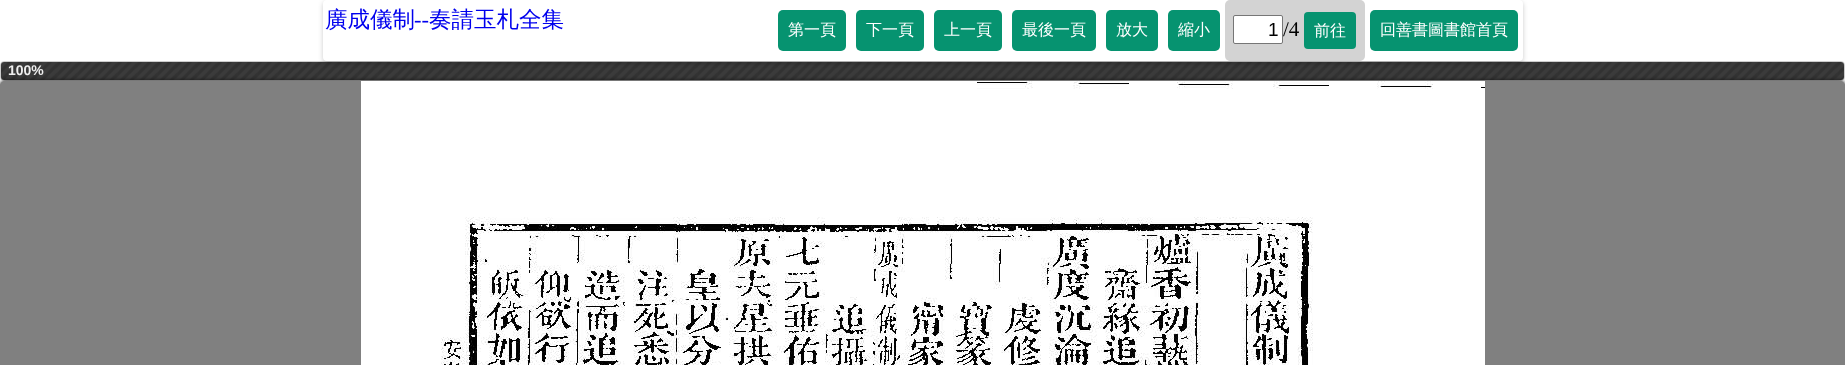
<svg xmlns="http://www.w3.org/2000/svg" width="1845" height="365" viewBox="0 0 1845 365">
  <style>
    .t1 { font: 500 22.5px WenQuanYi Zen Hei; fill: #00e; }
    .t2 { font: 22.5px Liberation Serif; fill: #00e; }
    .t3 { font: 500 16px WenQuanYi Zen Hei; fill: #fff; }
    .t4 { font: 19px Liberation Sans; fill: #000; }
    .t5 { font: 21px Liberation Serif; fill: #000; }
    .t6 { font: bold 14px Liberation Sans; fill: #eee; }
  </style>
  <rect width="100%" height="100%" fill="#fff"/>
  <rect x="0.5" y="61.5" width="1844" height="19" rx="3.5" fill="none" stroke="#ccc"/>
  <image x="1" y="62" width="1843" height="18" href="images/1.png"/>
  <rect x="323" y="2" width="1200" height="61" rx="4" fill="#00000033" filter="blur(2.5px)"/>
  <rect x="323" y="0" width="1200" height="61" rx="4" fill="#fff"/>
  <text x="325" y="27" class="t1">廣成儀制</text>
  <text x="414" y="27" class="t2">--</text>
  <text x="429" y="27" class="t1">奏請玉札全集</text>
  <rect x="778" y="10" width="68" height="41" rx="5" fill="#069370"/>
  <text x="788" y="35" class="t3">第一頁</text>
  <rect x="856" y="10" width="68" height="41" rx="5" fill="#069370"/>
  <text x="866" y="35" class="t3">下一頁</text>
  <rect x="934" y="10" width="68" height="41" rx="5" fill="#069370"/>
  <text x="944" y="35" class="t3">上一頁</text>
  <rect x="1012" y="10" width="84" height="41" rx="5" fill="#069370"/>
  <text x="1022" y="35" class="t3">最後一頁</text>
  <rect x="1106" y="10" width="52" height="41" rx="5" fill="#069370"/>
  <text x="1116" y="35" class="t3">放大</text>
  <rect x="1168" y="10" width="52" height="41" rx="5" fill="#069370"/>
  <text x="1178" y="35" class="t3">縮小</text>
  <rect x="1225" y="0" width="140" height="61" rx="5" fill="#d3d3d3"/>
  <rect x="1233.5" y="15.5" width="49" height="28" rx="1.5" fill="#fff" stroke="#767676"/>
  <text x="1268" y="36" class="t4">1</text>
  <text x="1283" y="36" class="t5">/4</text>
  <rect x="1304" y="12" width="52" height="37" rx="4" fill="#069370"/>
  <text x="1314" y="36" class="t3">前往</text>
  <rect x="1370" y="10" width="148" height="41" rx="5" fill="#069370"/>
  <text x="1380" y="35" class="t3">回善書圖書館首頁</text>
  <text x="8" y="75" class="t6">100%</text>
  <rect x="0" y="81" width="1845" height="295" rx="5" fill="#000" filter="blur(2px)"/>
  <rect x="0" y="81" width="1845" height="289" rx="5" fill="#808080"/>
  <image x="361" y="81" width="1124" height="284" href="images/2.png"/>
</svg>
